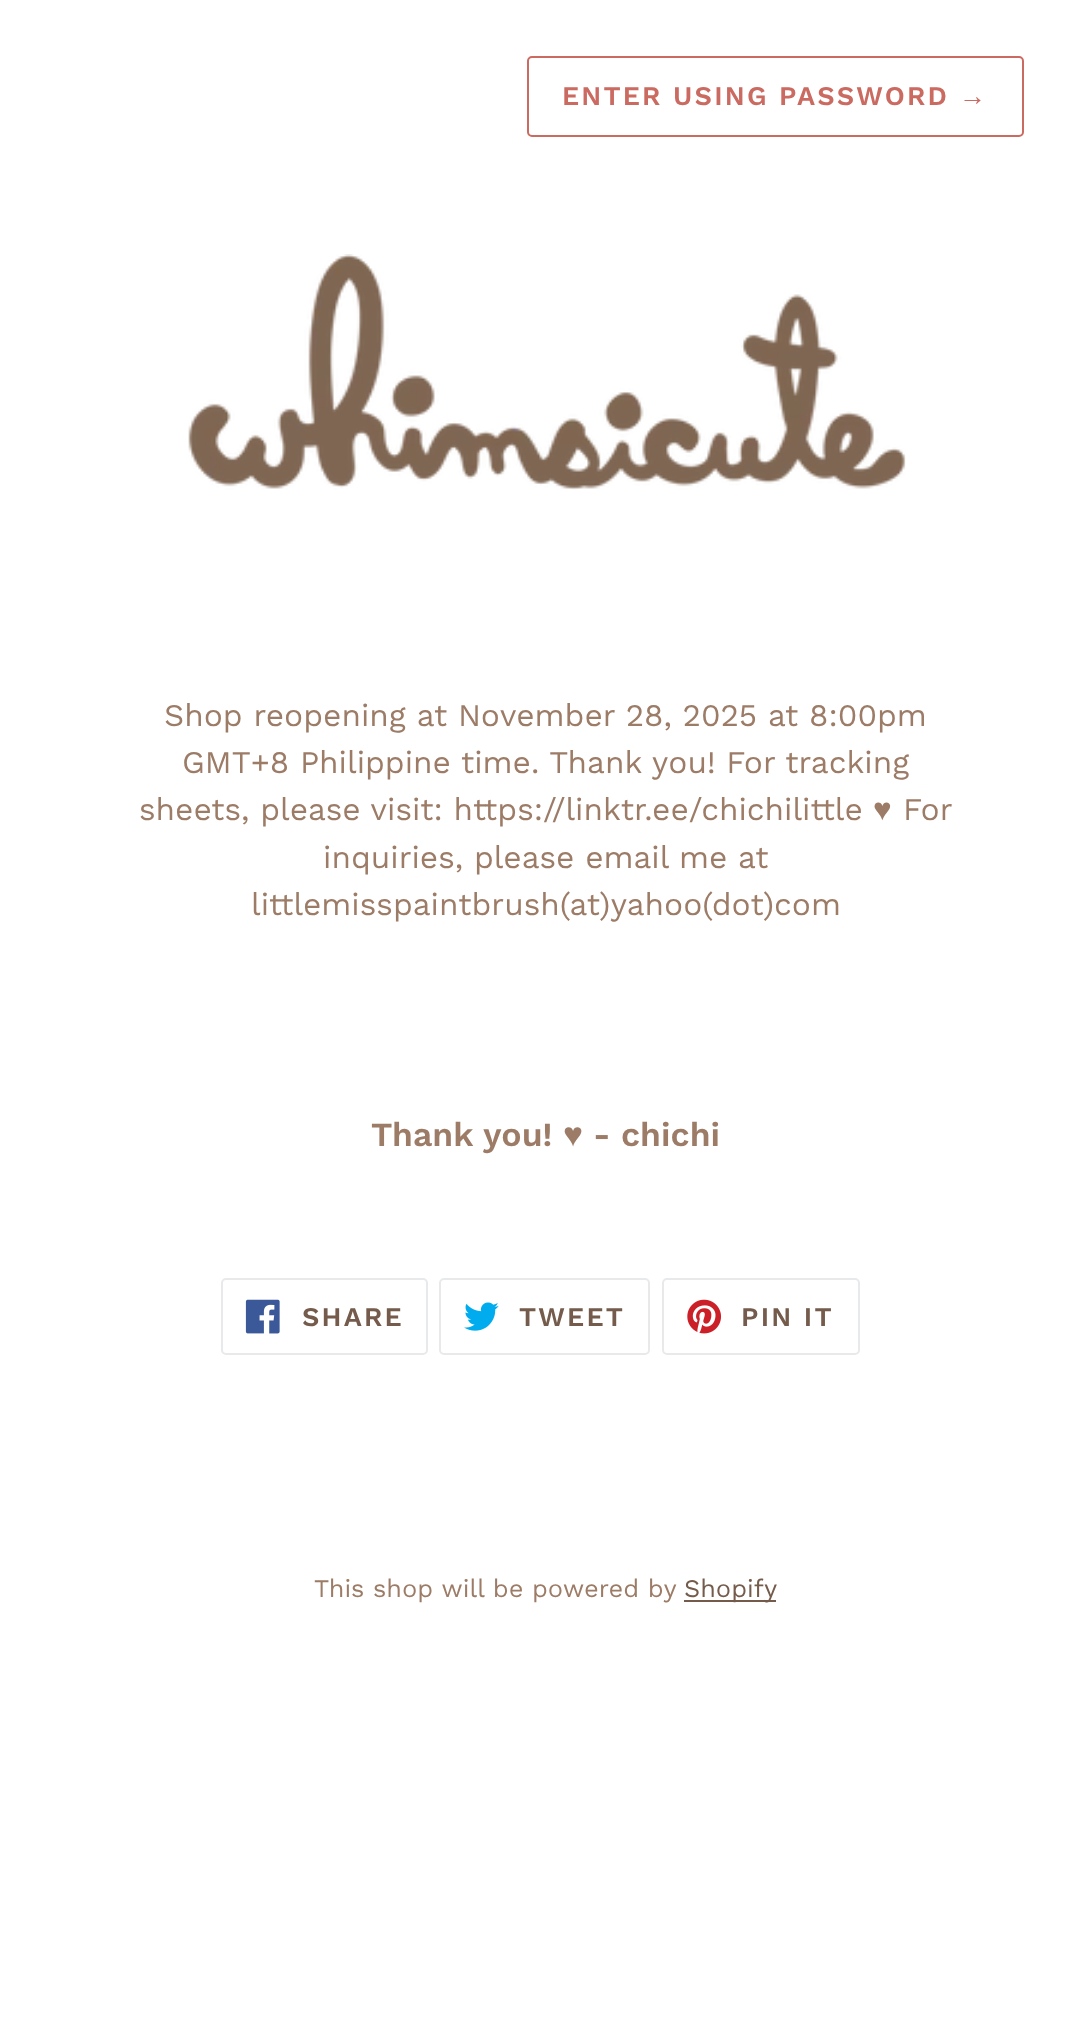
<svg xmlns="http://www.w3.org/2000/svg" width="1090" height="2027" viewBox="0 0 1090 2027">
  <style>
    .t1 { font: 600 27px Work Sans; letter-spacing: 2.2px; fill: #ca6a61; }
    .t2 { font: bold 27px Liberation Sans; letter-spacing: 2.2px; fill: #ca6a61; }
    .t3 { font: 31.5px Work Sans; fill: #9d7c67; }
    .t4 { font: 31.5px Liberation Sans; fill: #9d7c67; }
    .t5 { font: 600 33.75px Work Sans; fill: #9d7c67; }
    .t6 { font: bold 33.75px Liberation Sans; fill: #9d7c67; }
    .t7 { font: 600 27px Work Sans; letter-spacing: 2.2px; fill: #745b4b; }
    .t8 { font: 25.25px Work Sans; fill: #9d7c67; }
    .t9 { font: 25.25px Work Sans; fill: #745b4b; }
  </style>
  <rect width="100%" height="100%" fill="#fff"/>
  <rect x="528" y="57" width="495" height="79" rx="4" fill="none" stroke="#ca6a61" stroke-width="2"/>
  <text x="562" y="105" class="t1">ENTER USING PASSWORD</text>
  <text x="959" y="105" class="t2">→</text>
  <image x="188" y="254" width="718" height="236" href="images/1.png"/>
  <text x="164" y="726" class="t3">Shop reopening at November 28, 2025 at 8:00pm</text>
  <text x="182" y="773" class="t3">GMT+8 Philippine time. Thank you! For tracking</text>
  <text x="139" y="820" class="t3">sheets, please visit: https://linktr.ee/chichilittle</text>
  <text x="873" y="820" class="t4">♥</text>
  <text x="903" y="820" class="t3">For</text>
  <text x="323" y="868" class="t3">inquiries, please email me at</text>
  <text x="251" y="915" class="t3">littlemisspaintbrush(at)yahoo(dot)com</text>
  <text x="371" y="1146" class="t5">Thank you!</text>
  <text x="563" y="1146" class="t6">♥</text>
  <text x="593" y="1146" class="t5">- chichi</text>
  <rect x="222" y="1279" width="205" height="75" rx="4" fill="none" stroke="#e8e9eb" stroke-width="2"/>
  <image x="245" y="1299" width="35" height="35" href="images/2.png"/>
  <text x="302" y="1326" class="t7">SHARE</text>
  <rect x="440" y="1279" width="209" height="75" rx="4" fill="none" stroke="#e8e9eb" stroke-width="2"/>
  <image x="464" y="1302" width="35" height="29" href="images/3.png"/>
  <text x="519" y="1326" class="t7">TWEET</text>
  <rect x="663" y="1279" width="196" height="75" rx="4" fill="none" stroke="#e8e9eb" stroke-width="2"/>
  <image x="687" y="1299" width="34" height="35" href="images/4.png"/>
  <text x="741" y="1326" class="t7">PIN IT</text>
  <text x="314" y="1597" class="t8">This shop will be powered by</text>
  <rect x="684" y="1600" width="92" height="2" fill="#745b4b"/>
  <text x="684" y="1597" class="t9">Shopify</text>
</svg>
